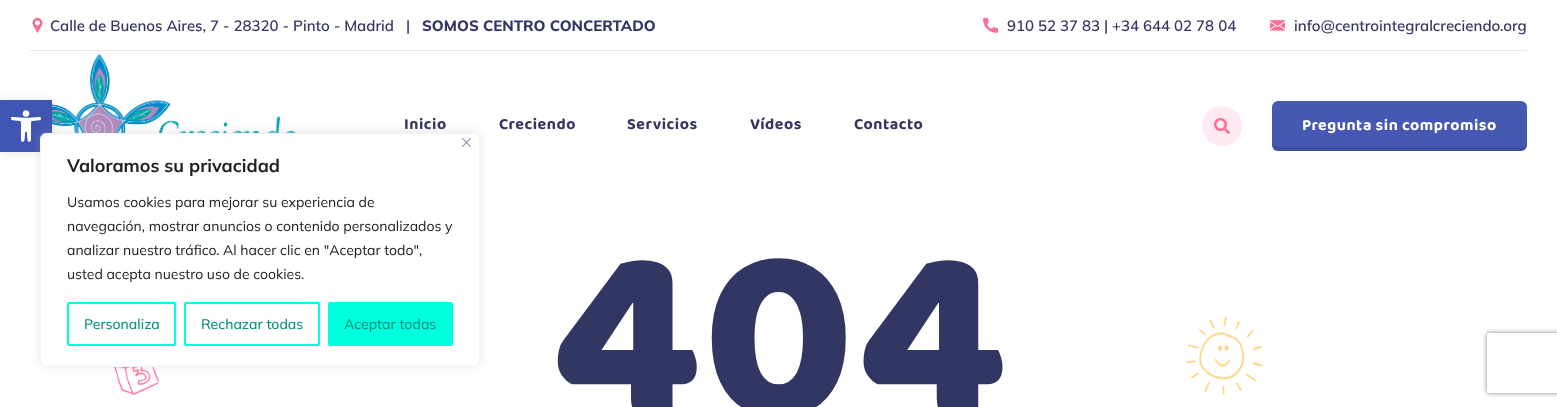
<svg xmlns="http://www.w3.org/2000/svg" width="1557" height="407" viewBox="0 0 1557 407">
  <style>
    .t1 { font: 600 15px Mulish; fill: #323663; }
    .t2 { font: 800 15px Mulish; fill: #323663; }
    .t3 { font: bold 16px 'Baloo 2'; letter-spacing: 0.5px; fill: #323663; }
    .t4 { font: bold 16px 'Baloo 2'; letter-spacing: 0.5px; fill: #fff; }
    .t5 { font: 800 250px 'Baloo 2'; fill: #323663; }
    .t6 { font: bold 18px Mulish; fill: #212121; }
    .t7 { font: 14px Mulish; fill: #212121; }
    .t8 { font: 500 14px Mulish; fill: #00917e; }
  </style>
  <defs>
    <clipPath id="clip1"><path d="M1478 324H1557V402H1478ZM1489 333H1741C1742 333 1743 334 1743 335V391C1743 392 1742 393 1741 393H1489C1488 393 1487 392 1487 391V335C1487 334 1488 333 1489 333Z" clip-rule="evenodd"/></clipPath>
  </defs>
  <rect width="100%" height="100%" fill="#fff"/>
  <image x="52" y="53" width="244" height="80" href="images/5.png"/>
  <rect x="0" y="100" width="52" height="52" fill="#0000001a" filter="blur(5px)"/>
  <rect x="0" y="100" width="52" height="52" fill="#4054b2"/>
  <image x="11" y="110" width="30" height="32" href="images/1.png"/>
  <rect x="30" y="50" width="1497" height="1" fill="#f4e5e5"/>
  <image x="32" y="17" width="11" height="16" href="images/2.png"/>
  <text x="50" y="31" class="t1" xml:space="preserve">Calle de Buenos Aires, 7 - 28320 - Pinto - Madrid   |</text>
  <text x="422" y="31" class="t2">SOMOS CENTRO CONCERTADO</text>
  <image x="983" y="17" width="15" height="16" href="images/3.png"/>
  <text x="1007" y="31" class="t1">910 52 37 83 | +34 644 02 78 04</text>
  <image x="1270" y="20" width="15" height="11" href="images/4.png"/>
  <text x="1294" y="31" class="t1">info@centrointegralcreciendo.org</text>
  <text x="404" y="129" class="t3">Inicio</text>
  <text x="499" y="129" class="t3">Creciendo</text>
  <text x="627" y="129" class="t3">Servicios</text>
  <text x="750" y="129" class="t3">Vídeos</text>
  <text x="854" y="129" class="t3">Contacto</text>
  <circle cx="1222" cy="126" r="20" fill="#ffeaf0"/>
  <image x="1214" y="118" width="16" height="16" href="images/6.png"/>
  <rect x="1272" y="101" width="255" height="50" rx="6" fill="#4559b3"/>
  <path d="M1272 141V145C1272 148 1275 151 1278 151H1521C1524 151 1527 148 1527 145V141C1527 144 1524 147 1521 147H1278C1275 147 1272 144 1272 141Z" fill="#0000001a"/>
  <text x="1302" y="130" class="t4">Pregunta sin compromiso</text>
  <image x="113" y="316" width="1150" height="79" href="images/7.png"/>
  <text x="550" y="414" class="t5">404</text>
  <rect x="40" y="132" width="440" height="234" rx="6" fill="#acabab4d" filter="blur(5px)"/>
  <rect x="40.5" y="133.5" width="439" height="233" rx="5.5" fill="#fff" stroke="#f4f4f4"/>
  <image x="462" y="138" width="9" height="9" href="images/8.png"/>
  <text x="67" y="172" class="t6">Valoramos su privacidad</text>
  <text x="67" y="207" class="t7">Usamos cookies para mejorar su experiencia de</text>
  <text x="67" y="231" class="t7">navegación, mostrar anuncios o contenido personalizados y</text>
  <text x="67" y="255" class="t7">analizar nuestro tráfico. Al hacer clic en "Aceptar todo",</text>
  <text x="67" y="279" class="t7">usted acepta nuestro uso de cookies.</text>
  <rect x="68" y="303" width="107" height="42" rx="1" fill="none" stroke="#00ffde" stroke-width="2"/>
  <text x="84" y="329" class="t8">Personaliza</text>
  <rect x="185" y="303" width="134" height="42" rx="1" fill="none" stroke="#00ffde" stroke-width="2"/>
  <text x="201" y="329" class="t8">Rechazar todas</text>
  <rect x="329" y="303" width="123" height="42" rx="1" fill="#00ffde" stroke="#00ffde" stroke-width="2"/>
  <text x="344" y="329" class="t8">Aceptar todas</text>
  <g clip-path="url(#clip1)">
    <rect x="1487" y="333" width="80" height="60" rx="2" fill="#808080" filter="blur(2.5px)"/>
  </g>
</svg>
